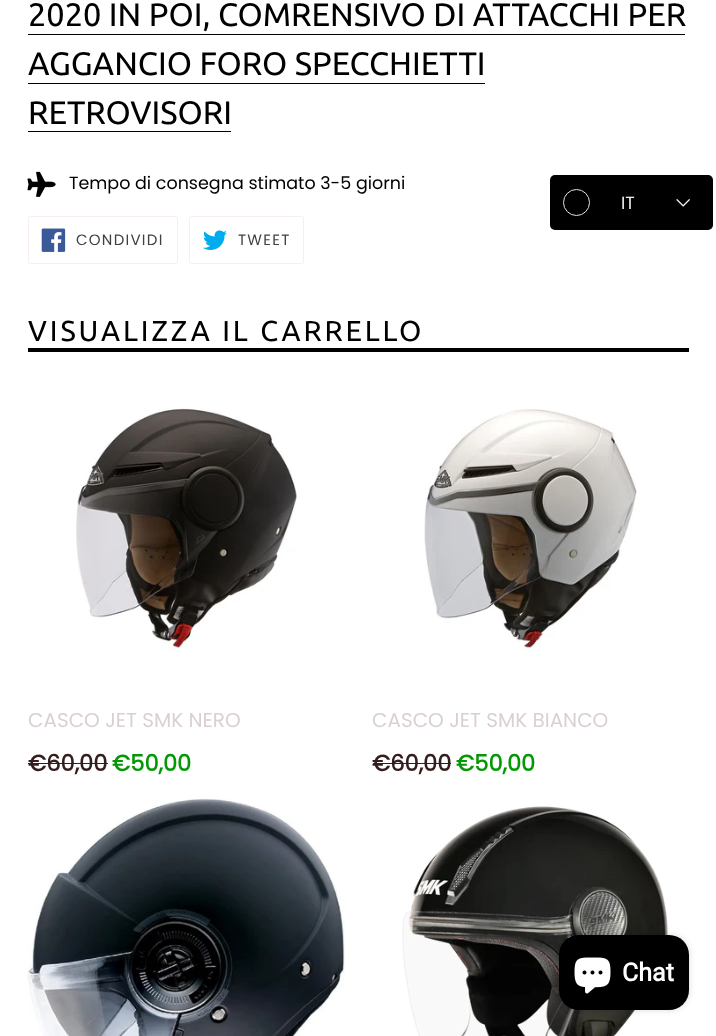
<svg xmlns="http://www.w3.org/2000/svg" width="716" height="1036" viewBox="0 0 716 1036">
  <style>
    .t1 { font: 32.5px Ubuntu; fill: #000; }
    .t2 { font: 17.5px Poppins; fill: #000; }
    .t3 { font: 15px Poppins; letter-spacing: 1.25px; fill: #3d4246; }
    .t4 { font: 28.75px Ubuntu; letter-spacing: 2.9px; fill: #000; }
    .t5 { font: 20px Poppins; fill: #dad0d0; }
    .t6 { font: bold 22.5px Poppins; fill: #331d1d; }
    .t7 { font: bold 22.5px Poppins; fill: #059805; }
    .t8 { font: 17.5px Poppins; fill: #eee; }
    .t9 { font: bold 25px Roboto; fill: #fff; }
  </style>
  <rect width="100%" height="100%" fill="#fff"/>
  <text x="28" y="26" class="t1">2020 IN POI, COMRENSIVO DI ATTACCHI PER</text>
  <rect x="28" y="34" width="657" height="1" fill="#000"/>
  <text x="28" y="75" class="t1">AGGANCIO FORO SPECCHIETTI</text>
  <rect x="28" y="83" width="457" height="1" fill="#000"/>
  <text x="28" y="124" class="t1">RETROVISORI</text>
  <rect x="28" y="131" width="203" height="1" fill="#000"/>
  <image x="27" y="171" width="29" height="26" href="images/1.png"/>
  <text x="69" y="189" class="t2">Tempo di consegna stimato 3-5 giorni</text>
  <rect x="28.5" y="216.5" width="149" height="47" rx="2" fill="none" stroke="#f7efef"/>
  <image x="41" y="228" width="25" height="24" href="images/2.png"/>
  <text x="76" y="245" class="t3">CONDIVIDI</text>
  <rect x="189.5" y="216.5" width="114" height="47" rx="2" fill="none" stroke="#f7efef"/>
  <image x="203" y="230" width="24" height="20" href="images/3.png"/>
  <text x="238" y="245" class="t3">TWEET</text>
  <rect x="28" y="348" width="661" height="4" fill="#000"/>
  <text x="28" y="341" class="t4">VISUALIZZA IL CARRELLO</text>
  <image x="76" y="408" width="221" height="244" href="images/4.png"/>
  <text x="28" y="727" class="t5">CASCO JET SMK NERO</text>
  <text x="28" y="771" class="t6">€60,00</text>
  <rect x="28" y="763" width="80" height="1" fill="#331d1d"/>
  <text x="112" y="771" class="t7">€50,00</text>
  <image x="424" y="409" width="213" height="243" href="images/5.png"/>
  <text x="372" y="727" class="t5">CASCO JET SMK BIANCO</text>
  <text x="372" y="771" class="t6">€60,00</text>
  <rect x="373" y="763" width="78" height="1" fill="#331d1d"/>
  <text x="456" y="771" class="t7">€50,00</text>
  <image x="27" y="798" width="318" height="238" href="images/6.png"/>
  <image x="402" y="806" width="266" height="230" href="images/7.png"/>
  <rect x="550" y="175" width="163" height="55" rx="5" fill="#000"/>
  <circle cx="576.5" cy="202.5" r="13" fill="none" stroke="#e6e3e3"/>
  <text x="621" y="209" class="t8">IT</text>
  <image x="676" y="199" width="14" height="8" href="images/8.png"/>
  <rect x="559" y="935" width="130" height="75" rx="20" fill="#00000026" filter="blur(3px)"/>
  <rect x="559" y="935" width="130" height="75" rx="20" fill="#000"/>
  <image x="574" y="957" width="37" height="37" href="images/9.png"/>
  <text x="622" y="981" class="t9">Chat</text>
</svg>
